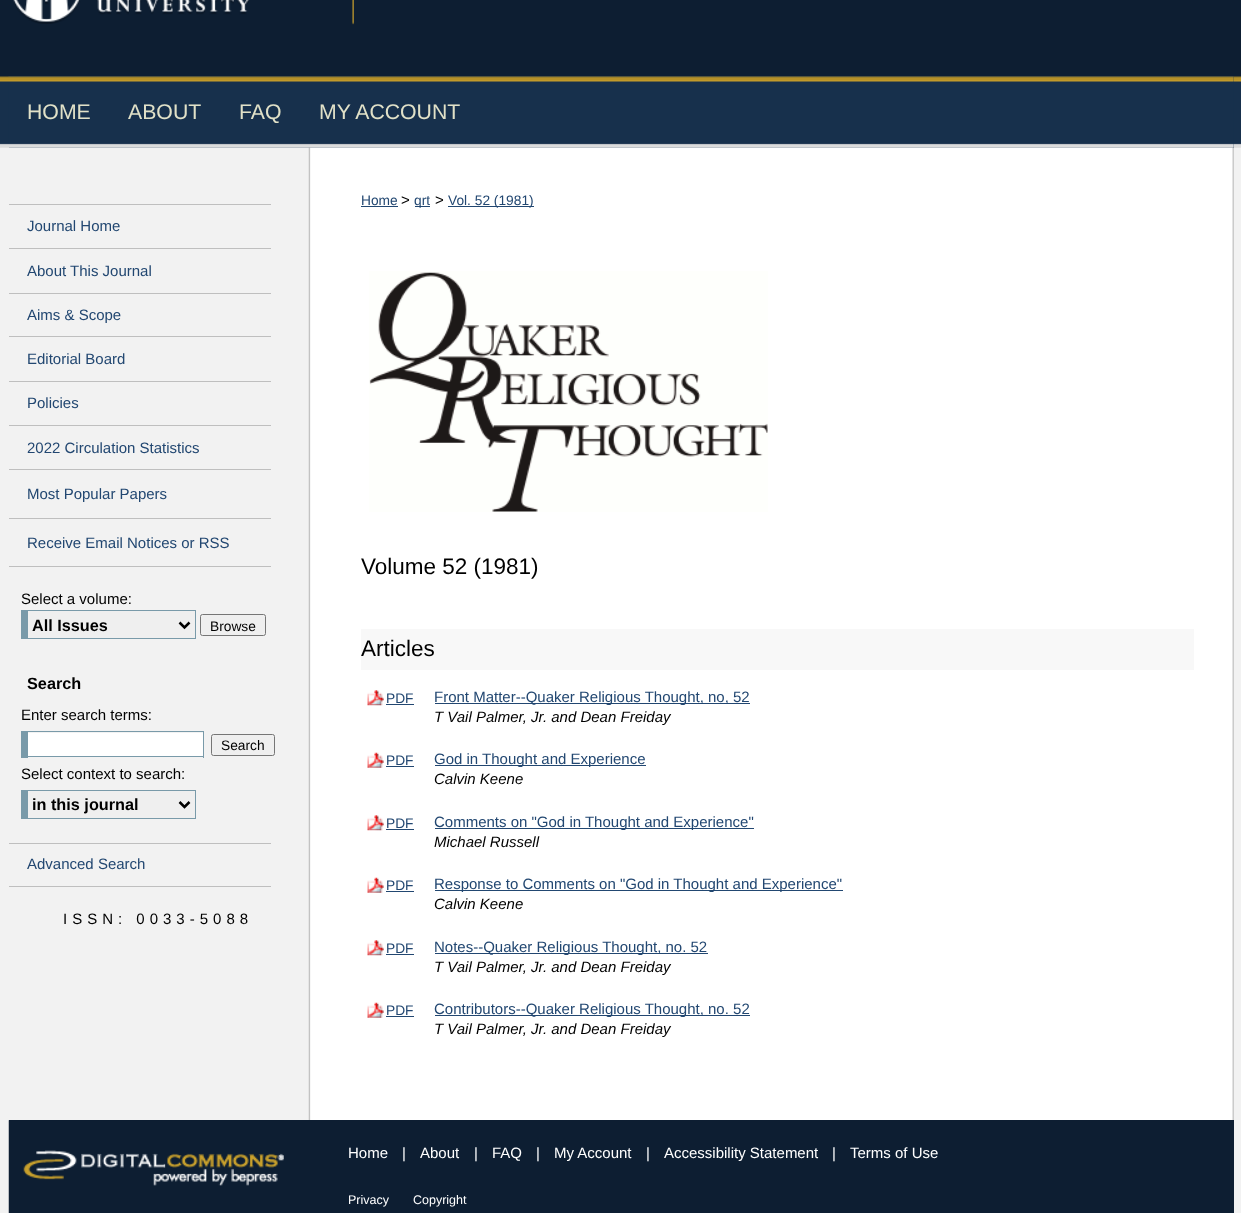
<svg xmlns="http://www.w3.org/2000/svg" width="1241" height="1213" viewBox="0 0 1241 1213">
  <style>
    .t1 { font: 21.25px Liberation Sans; fill: #e1e1c8; }
    .t2 { font: 15px Liberation Sans; fill: #224771; }
    .t3 { font: 15px Liberation Sans; fill: #000; }
    .t4 { font: bold 16.25px Liberation Sans; fill: #000; }
    .t5 { font: 13.75px Liberation Sans; fill: #000; }
    .t6 { font: 15px Liberation Sans; letter-spacing: 5px; fill: #000; }
    .t7 { font: 13.75px Liberation Sans; fill: #224771; }
    .t8 { font: 22.5px Liberation Sans; fill: #000; }
    .t9 { font: italic 15px Liberation Sans; fill: #000; }
    .t10 { font: 15px Liberation Sans; fill: #fff; }
    .t11 { font: 12.5px Liberation Sans; fill: #fff; }
  </style>
  <rect width="100%" height="100%" fill="#f2f2f2"/>
  <image x="0" y="0" width="1241" height="148" href="images/1.png"/>
  <image x="13" y="0" width="236" height="24" href="images/2.png"/>
  <image x="352" y="0" width="2" height="25" href="images/3.png"/>
  <rect x="9" y="76" width="1225" height="72" fill="#17304c"/>
  <image x="8" y="76" width="1226" height="72" href="images/4.png"/>
  <text x="27" y="119" class="t1">HOME</text>
  <text x="128" y="119" class="t1">ABOUT</text>
  <text x="239" y="119" class="t1">FAQ</text>
  <text x="319" y="119" class="t1">MY ACCOUNT</text>
  <image x="9" y="147" width="1225" height="973" href="images/5.png"/>
  <rect x="9" y="469" width="262" height="1" fill="#bfbfbf"/>
  <rect x="9" y="204" width="262" height="1" fill="#bfbfbf"/>
  <text x="27" y="231" class="t2">Journal Home</text>
  <rect x="9" y="248" width="262" height="1" fill="#bfbfbf"/>
  <text x="27" y="276" class="t2">About This Journal</text>
  <rect x="9" y="293" width="262" height="1" fill="#bfbfbf"/>
  <text x="27" y="320" class="t2">Aims &amp; Scope</text>
  <rect x="9" y="336" width="262" height="1" fill="#bfbfbf"/>
  <text x="27" y="364" class="t2">Editorial Board</text>
  <rect x="9" y="381" width="262" height="1" fill="#bfbfbf"/>
  <text x="27" y="408" class="t2">Policies</text>
  <rect x="9" y="425" width="262" height="1" fill="#bfbfbf"/>
  <text x="27" y="453" class="t2">2022 Circulation Statistics</text>
  <rect x="9" y="518" width="262" height="1" fill="#bfbfbf"/>
  <text x="27" y="499" class="t2">Most Popular Papers</text>
  <rect x="9" y="566" width="262" height="1" fill="#bfbfbf"/>
  <text x="27" y="548" class="t2">Receive Email Notices or RSS</text>
  <text x="21" y="604" class="t3">Select a volume:</text>
  <rect x="28" y="611" width="167" height="27" fill="#efefef"/>
  <rect x="21" y="610" width="175" height="1" fill="#799aa9"/>
  <rect x="195" y="610" width="1" height="29" fill="#799aa9"/>
  <rect x="21" y="638" width="175" height="1" fill="#799aa9"/>
  <rect x="21" y="610" width="7" height="29" fill="#799aa9"/>
  <path d="M179.5 622.5L184.5 627.5L189.5 622.5" fill="none" stroke="#000" stroke-width="2.5"/>
  <text x="32" y="631" class="t4">All Issues</text>
  <rect x="200.5" y="614.5" width="65" height="21" rx="2" fill="#efefef" stroke="#767676"/>
  <text x="210" y="631" class="t5">Browse</text>
  <text x="27" y="689" class="t4">Search</text>
  <text x="21" y="720" class="t3">Enter search terms:</text>
  <rect x="28" y="733" width="175" height="23" fill="#fff"/>
  <rect x="21" y="731" width="183" height="1" fill="#799aa9"/>
  <rect x="203" y="731" width="1" height="27" fill="#799aa9"/>
  <rect x="21" y="756" width="183" height="1" fill="#799aa9"/>
  <rect x="21" y="731" width="7" height="27" fill="#799aa9"/>
  <rect x="211.5" y="734.5" width="63" height="21" rx="2" fill="#efefef" stroke="#767676"/>
  <text x="221" y="750" class="t5">Search</text>
  <text x="21" y="779" class="t3">Select context to search:</text>
  <rect x="28" y="791" width="167" height="27" fill="#efefef"/>
  <rect x="21" y="790" width="175" height="1" fill="#799aa9"/>
  <rect x="195" y="790" width="1" height="29" fill="#799aa9"/>
  <rect x="21" y="818" width="175" height="1" fill="#799aa9"/>
  <rect x="21" y="790" width="7" height="29" fill="#799aa9"/>
  <path d="M179.5 802L184.5 807L189.5 802" fill="none" stroke="#000" stroke-width="2.5"/>
  <text x="32" y="810" class="t4">in this journal</text>
  <rect x="9" y="843" width="262" height="1" fill="#bfbfbf"/>
  <rect x="9" y="886" width="262" height="1" fill="#bfbfbf"/>
  <text x="27" y="869" class="t2">Advanced Search</text>
  <text x="63" y="924" class="t6">ISSN: 0033-5088</text>
  <text x="361" y="205" class="t7">Home</text>
  <rect x="361" y="206" width="37" height="1" fill="#224771"/>
  <text x="401" y="205" class="t3">&gt;</text>
  <rect x="415" y="206" width="15" height="1" fill="#224771"/>
  <text x="414" y="205" class="t7">qrt</text>
  <text x="435" y="205" class="t3">&gt;</text>
  <rect x="448" y="206" width="86" height="1" fill="#224771"/>
  <text x="448" y="205" class="t7">Vol. 52 (1981)</text>
  <image x="369" y="271" width="399" height="241" href="images/6.png"/>
  <text x="361" y="574" class="t8">Volume 52 (1981)</text>
  <rect x="361" y="629" width="833" height="41" fill="#f8f8f8"/>
  <text x="361" y="656" class="t8">Articles</text>
  <image x="367" y="690" width="17" height="16" href="images/7.png"/>
  <text x="386" y="703" class="t7">PDF</text>
  <rect x="386" y="704" width="28" height="1" fill="#224771"/>
  <rect x="435" y="703" width="315" height="1" fill="#224771"/>
  <text x="434" y="702" class="t2">Front Matter--Quaker Religious Thought, no, 52</text>
  <text x="434" y="722" class="t9">T Vail Palmer, Jr. and Dean Freiday</text>
  <image x="367" y="752" width="17" height="16" href="images/8.png"/>
  <text x="386" y="765" class="t7">PDF</text>
  <rect x="386" y="766" width="28" height="1" fill="#224771"/>
  <rect x="435" y="765" width="211" height="1" fill="#224771"/>
  <text x="434" y="764" class="t2">God in Thought and Experience</text>
  <text x="434" y="784" class="t9">Calvin Keene</text>
  <image x="367" y="815" width="17" height="16" href="images/7.png"/>
  <text x="386" y="828" class="t7">PDF</text>
  <rect x="386" y="829" width="28" height="1" fill="#224771"/>
  <rect x="435" y="828" width="319" height="1" fill="#224771"/>
  <text x="434" y="827" class="t2">Comments on "God in Thought and Experience"</text>
  <text x="434" y="847" class="t9">Michael Russell</text>
  <image x="367" y="877" width="17" height="16" href="images/8.png"/>
  <text x="386" y="890" class="t7">PDF</text>
  <rect x="386" y="891" width="28" height="1" fill="#224771"/>
  <rect x="435" y="890" width="408" height="1" fill="#224771"/>
  <text x="434" y="889" class="t2">Response to Comments on "God in Thought and Experience"</text>
  <text x="434" y="909" class="t9">Calvin Keene</text>
  <image x="367" y="940" width="17" height="16" href="images/7.png"/>
  <text x="386" y="953" class="t7">PDF</text>
  <rect x="386" y="954" width="28" height="1" fill="#224771"/>
  <rect x="435" y="953" width="273" height="1" fill="#224771"/>
  <text x="434" y="952" class="t2">Notes--Quaker Religious Thought, no. 52</text>
  <text x="434" y="972" class="t9">T Vail Palmer, Jr. and Dean Freiday</text>
  <image x="367" y="1002" width="17" height="16" href="images/8.png"/>
  <text x="386" y="1015" class="t7">PDF</text>
  <rect x="386" y="1016" width="28" height="1" fill="#224771"/>
  <rect x="435" y="1015" width="315" height="1" fill="#224771"/>
  <text x="434" y="1014" class="t2">Contributors--Quaker Religious Thought, no. 52</text>
  <text x="434" y="1034" class="t9">T Vail Palmer, Jr. and Dean Freiday</text>
  <rect x="9" y="1120" width="1225" height="93" fill="#0d1e32"/>
  <image x="8" y="1120" width="276" height="93" href="images/9.png"/>
  <text x="348" y="1158" class="t10">Home</text>
  <text x="402" y="1158" class="t10">|</text>
  <text x="420" y="1158" class="t10">About</text>
  <text x="474" y="1158" class="t10">|</text>
  <text x="492" y="1158" class="t10">FAQ</text>
  <text x="536" y="1158" class="t10">|</text>
  <text x="554" y="1158" class="t10">My Account</text>
  <text x="646" y="1158" class="t10">|</text>
  <text x="664" y="1158" class="t10">Accessibility Statement</text>
  <text x="832" y="1158" class="t10">|</text>
  <text x="850" y="1158" class="t10">Terms of Use</text>
  <text x="348" y="1204" class="t11">Privacy</text>
  <text x="413" y="1204" class="t11">Copyright</text>
</svg>
